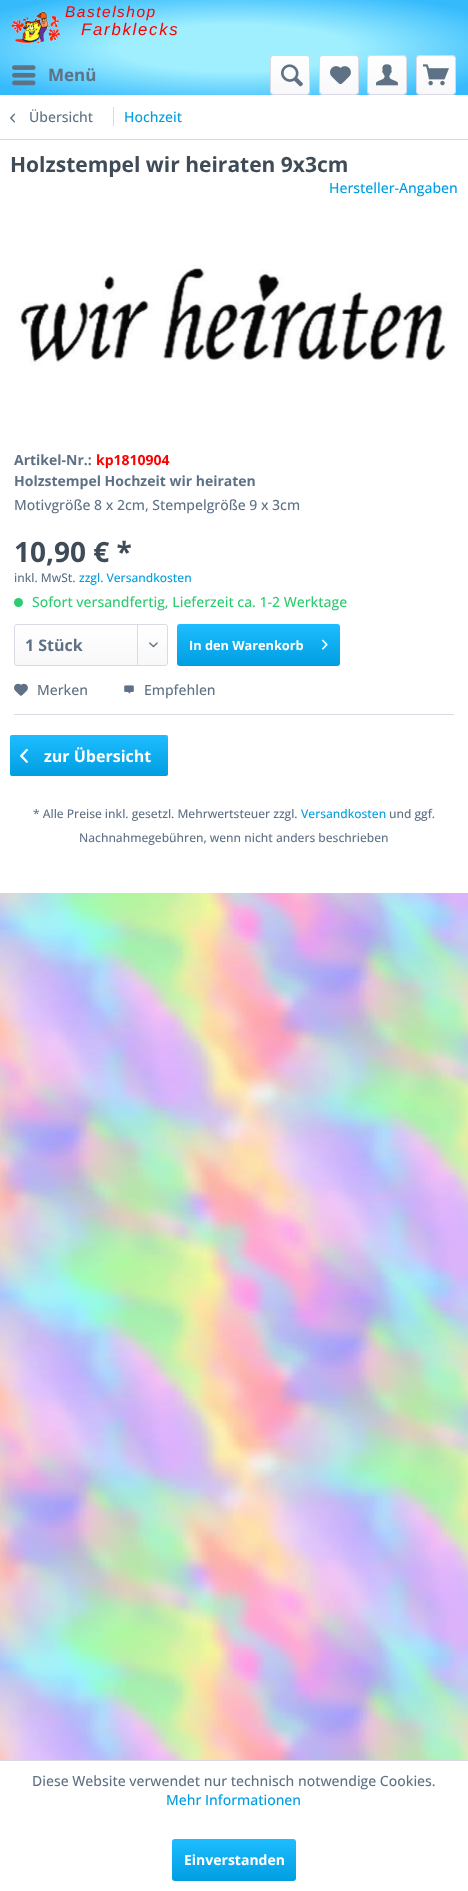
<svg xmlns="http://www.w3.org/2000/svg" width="468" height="1891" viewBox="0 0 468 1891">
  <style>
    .t1 { font: italic 15.5px Liberation Sans; letter-spacing: 1.5px; fill: #f00; }
    .t2 { font: italic 16.75px Liberation Sans; letter-spacing: 1.75px; fill: #f00; }
    .t3 { font: bold 17px Open Sans; fill: #5f7285; }
    .t4 { font: 500 14px Open Sans; fill: #5f7285; }
    .t5 { font: 500 14px Open Sans; fill: #009ee0; }
    .t6 { font: bold 21px Open Sans; fill: #3f4c58; }
    .t7 { font: bold 14px Open Sans; fill: #5f7285; }
    .t8 { font: bold 14px Open Sans; fill: #f00; }
    .t9 { font: bold 28px Open Sans; fill: #3f4c58; }
    .t10 { font: 500 12px Open Sans; fill: #5f7285; }
    .t11 { font: 500 12px Open Sans; fill: #009ee0; }
    .t12 { font: 500 14px Open Sans; fill: #2ecc71; }
    .t13 { font: bold 16px Open Sans; fill: #5f7285; }
    .t14 { font: bold 12.75px Open Sans; fill: #fff; }
    .t15 { font: bold 16px Open Sans; fill: #fff; }
    .t16 { font: bold 14px Open Sans; fill: #fff; }
  </style>
  <defs>
    <radialGradient id="g1" gradientUnits="userSpaceOnUse" cx="0" cy="0" r="1" gradientTransform="matrix(331 0 0 67 234 48)"><stop offset="0.35" stop-color="#a0efff"/><stop offset="0.9" stop-color="#35bafc"/></radialGradient>
    <linearGradient id="g2" gradientUnits="userSpaceOnUse" x1="290" y1="56" x2="290" y2="94"><stop offset="0" stop-color="#fff"/><stop offset="1" stop-color="#f8f8fa"/></linearGradient>
    <linearGradient id="g3" gradientUnits="userSpaceOnUse" x1="339" y1="56" x2="339" y2="94"><stop offset="0" stop-color="#fff"/><stop offset="1" stop-color="#f8f8fa"/></linearGradient>
    <linearGradient id="g4" gradientUnits="userSpaceOnUse" x1="387" y1="56" x2="387" y2="94"><stop offset="0" stop-color="#fff"/><stop offset="1" stop-color="#f8f8fa"/></linearGradient>
    <linearGradient id="g5" gradientUnits="userSpaceOnUse" x1="436" y1="56" x2="436" y2="94"><stop offset="0" stop-color="#fff"/><stop offset="1" stop-color="#f8f8fa"/></linearGradient>
    <linearGradient id="g6" gradientUnits="userSpaceOnUse" x1="91" y1="625" x2="91" y2="665"><stop offset="0" stop-color="#fff"/><stop offset="1" stop-color="#f8f8fa"/></linearGradient>
    <linearGradient id="g7" gradientUnits="userSpaceOnUse" x1="259" y1="624" x2="259" y2="666"><stop offset="0" stop-color="#1ebdff"/><stop offset="1" stop-color="#009ee0"/></linearGradient>
    <linearGradient id="g8" gradientUnits="userSpaceOnUse" x1="89" y1="735" x2="89" y2="776"><stop offset="0" stop-color="#1ebdff"/><stop offset="1" stop-color="#009ee0"/></linearGradient>
    <linearGradient id="g9" gradientUnits="userSpaceOnUse" x1="234" y1="1839" x2="234" y2="1881"><stop offset="0" stop-color="#1ebdff"/><stop offset="1" stop-color="#009ee0"/></linearGradient>
  </defs>
  <rect width="100%" height="100%" fill="#fff"/>
  <image x="0" y="893" width="468" height="867" href="images/1.png"/>
  <rect x="0" y="0" width="468" height="95" fill="url(#g1)"/>
  <image x="11" y="11" width="50" height="33" href="images/2.png"/>
  <text x="65" y="17" class="t1">Bastelshop</text>
  <text x="81" y="35" class="t2">Farbklecks</text>
  <image x="12" y="65" width="24" height="21" href="images/3.png"/>
  <text x="48" y="81" class="t3">Menü</text>
  <rect x="271" y="56" width="38" height="38" rx="2" fill="url(#g2)"/>
  <rect x="270.5" y="55.5" width="39" height="39" rx="2.5" fill="none" stroke="#dadae5"/>
  <image x="281" y="64" width="22" height="23" href="images/4.png"/>
  <rect x="320" y="56" width="38" height="38" rx="2" fill="url(#g3)"/>
  <rect x="319.5" y="55.5" width="39" height="39" rx="2.5" fill="none" stroke="#dadae5"/>
  <image x="330" y="66" width="21" height="19" href="images/5.png"/>
  <rect x="368" y="56" width="38" height="38" rx="2" fill="url(#g4)"/>
  <rect x="367.5" y="55.5" width="39" height="39" rx="2.5" fill="none" stroke="#dadae5"/>
  <image x="376" y="64" width="22" height="22" href="images/6.png"/>
  <rect x="417" y="56" width="38" height="38" rx="2" fill="url(#g5)"/>
  <rect x="416.5" y="55.5" width="39" height="39" rx="2.5" fill="none" stroke="#dadae5"/>
  <image x="423" y="64" width="26" height="22" href="images/7.png"/>
  <rect x="0" y="139" width="468" height="1" fill="#dadae5"/>
  <image x="10" y="113" width="5" height="10" href="images/8.png"/>
  <text x="29" y="122" class="t4">Übersicht</text>
  <rect x="113" y="107" width="1" height="19" fill="#dadae5"/>
  <text x="124" y="122" class="t5">Hochzeit</text>
  <text x="10" y="172" class="t6">Holzstempel wir heiraten 9x3cm</text>
  <text x="329" y="193" class="t5">Hersteller-Angaben</text>
  <image x="17" y="265" width="430" height="101" href="images/9.png"/>
  <text x="14" y="465" class="t7">Artikel-Nr.:</text>
  <text x="96" y="465" class="t8">kp1810904</text>
  <text x="14" y="486" class="t7">Holzstempel Hochzeit wir heiraten</text>
  <text x="14" y="510" class="t4">Motivgröße 8 x 2cm, Stempelgröße 9 x 3cm</text>
  <text x="14" y="562" class="t9">10,90 € *</text>
  <text x="14" y="582" class="t10">inkl. MwSt.</text>
  <text x="79" y="582" class="t11">zzgl. Versandkosten</text>
  <circle cx="18.5" cy="602.5" r="4.5" fill="#2ecc71"/>
  <text x="32" y="607" class="t12">Sofort versandfertig, Lieferzeit ca. 1-2 Werktage</text>
  <rect x="15" y="625" width="152" height="40" rx="2" fill="url(#g6)"/>
  <rect x="14.5" y="624.5" width="153" height="41" rx="2.5" fill="none" stroke="#dadae5"/>
  <text x="25" y="651" class="t13">1 Stück</text>
  <rect x="137" y="625" width="1" height="40" fill="#dadae5"/>
  <image x="149" y="642" width="9" height="6" href="images/10.png"/>
  <rect x="177" y="624" width="163" height="42" rx="3" fill="url(#g7)"/>
  <text x="189" y="650" class="t14">In den Warenkorb</text>
  <image x="322" y="639" width="6" height="11" href="images/11.png"/>
  <rect x="14" y="714" width="440" height="1" fill="#dadae5"/>
  <image x="14" y="683" width="14" height="13" href="images/12.png"/>
  <text x="37" y="695" class="t4">Merken</text>
  <image x="124" y="685" width="10" height="9" href="images/13.png"/>
  <text x="144" y="695" class="t4">Empfehlen</text>
  <rect x="10" y="735" width="158" height="41" rx="2" fill="url(#g8)"/>
  <image x="20" y="748" width="8" height="15" href="images/14.png"/>
  <text x="44" y="762" class="t15">zur Übersicht</text>
  <text x="33" y="818" class="t10">* Alle Preise inkl. gesetzl. Mehrwertsteuer zzgl.</text>
  <text x="301" y="818" class="t11">Versandkosten</text>
  <text x="389" y="818" class="t10">und ggf.</text>
  <text x="79" y="842" class="t10">Nachnahmegebühren, wenn nicht anders beschrieben</text>
  <rect x="0" y="1760" width="468" height="1" fill="#dadae5"/>
  <text x="32" y="1786" class="t4">Diese Website verwendet nur technisch notwendige Cookies.</text>
  <text x="166" y="1805" class="t5">Mehr Informationen</text>
  <rect x="172" y="1839" width="124" height="42" rx="3" fill="url(#g9)"/>
  <text x="184" y="1865" class="t16">Einverstanden</text>
</svg>
